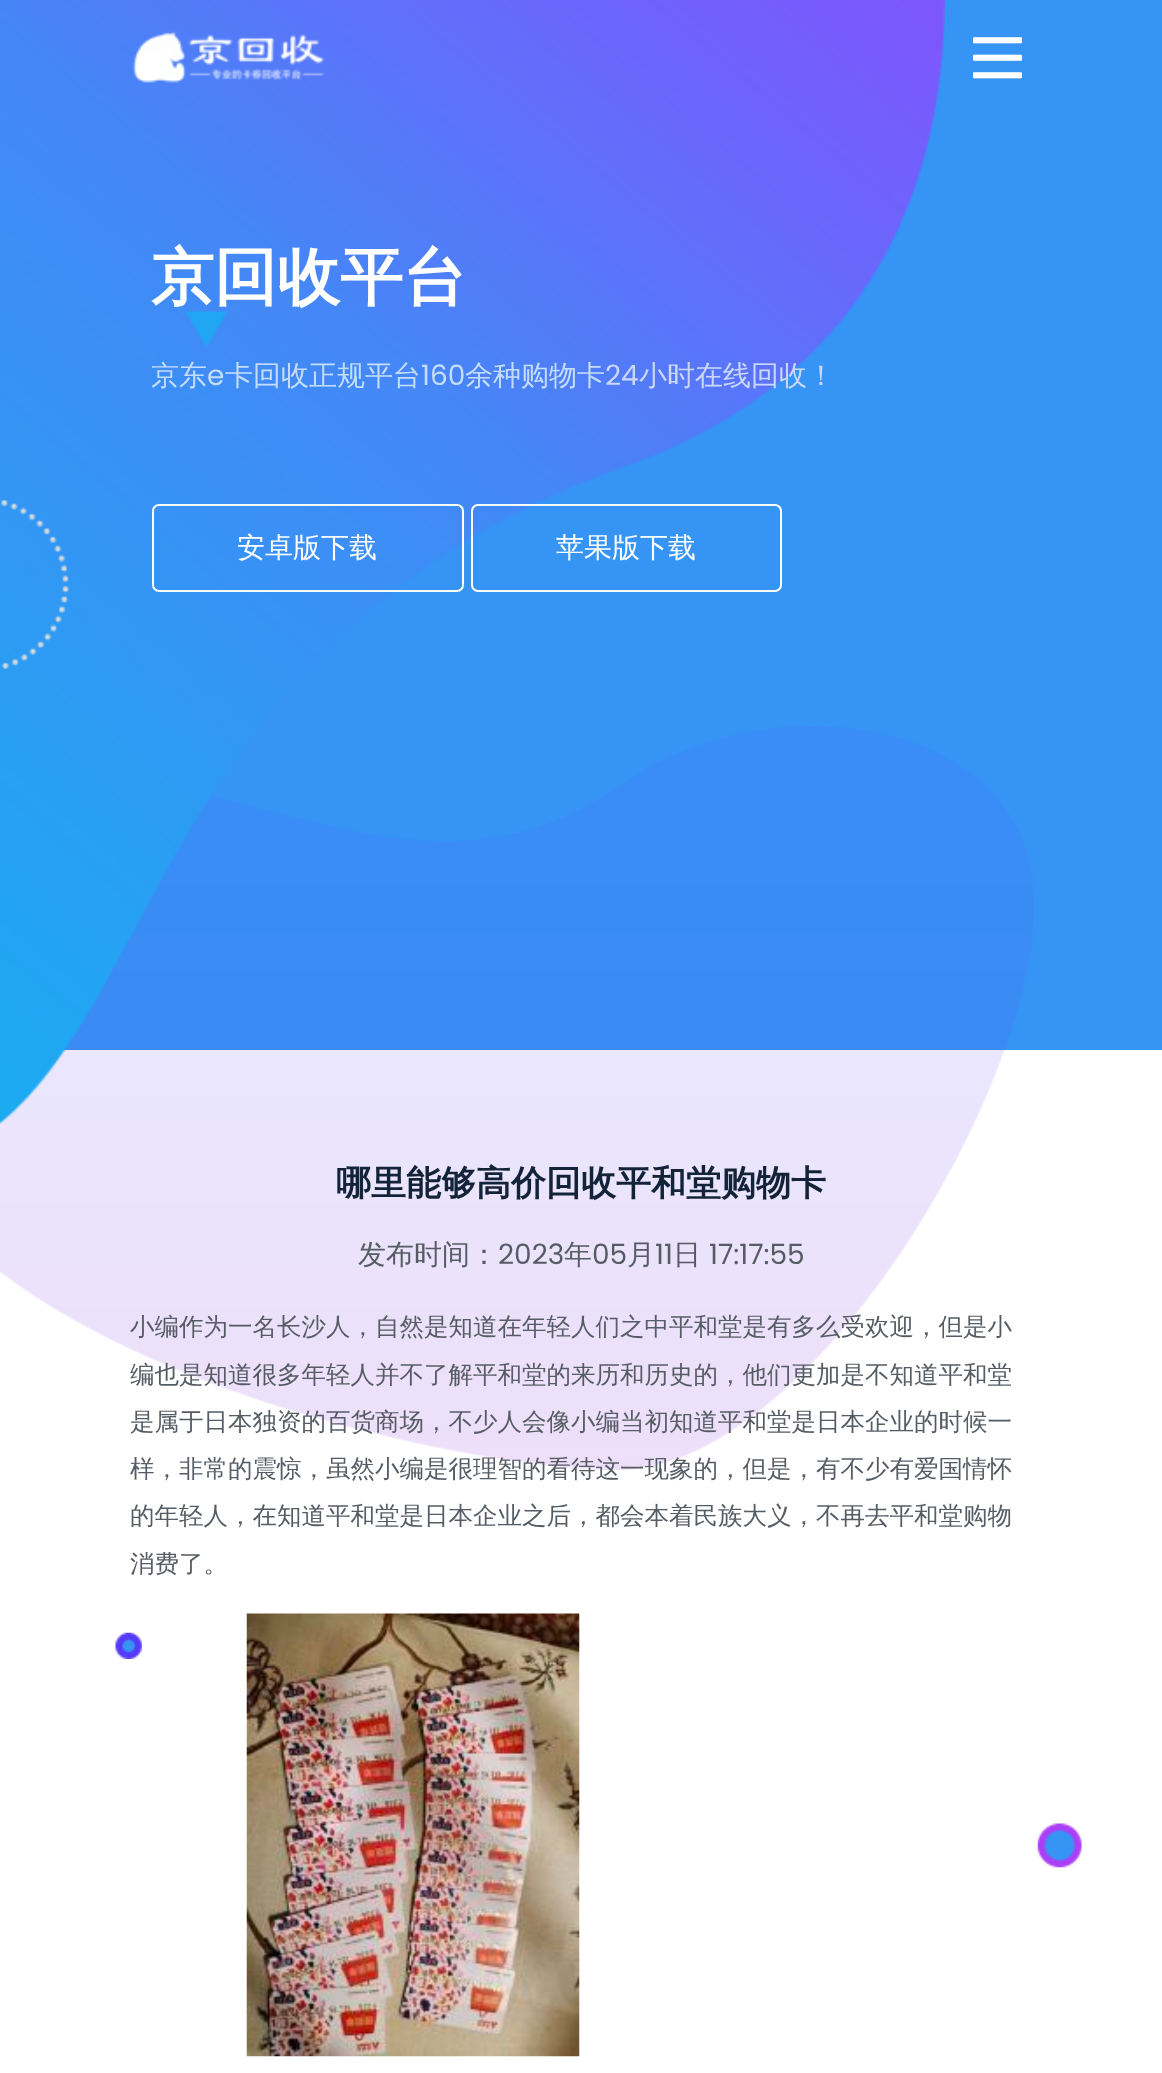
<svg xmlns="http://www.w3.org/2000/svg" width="1162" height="2073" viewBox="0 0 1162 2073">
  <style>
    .t1 { font: bold 63px WenQuanYi Zen Hei; fill: #fff; }
    .t2 { font: 500 28px WenQuanYi Zen Hei; fill: #c5ddfc; }
    .t3 { font: 28px Poppins; fill: #c5ddfc; }
    .t4 { font: 28px Poppins; fill: #cbd7fd; }
    .t5 { font: 500 28px WenQuanYi Zen Hei; fill: #cbd7fd; }
    .t6 { font: 500 28px WenQuanYi Zen Hei; fill: #fff; }
    .t7 { font: bold 35px WenQuanYi Zen Hei; fill: #132339; }
    .t8 { font: 500 28px WenQuanYi Zen Hei; fill: #565c64; }
    .t9 { font: 28px Poppins; fill: #565c64; }
    .t10 { font: 500 24.5px WenQuanYi Zen Hei; fill: #565c64; }
  </style>
  <rect width="100%" height="100%" fill="#fff"/>
  <rect x="62" y="0" width="1100" height="1050" fill="#3694f5"/>
  <image x="0" y="726" width="1034" height="744" href="images/8.png"/>
  <image x="0" y="0" width="945" height="1124" href="images/3.png"/>
  <image x="132" y="31" width="193" height="52" href="images/1.png"/>
  <image x="973" y="37" width="49" height="42" href="images/2.png"/>
  <image x="185" y="311" width="43" height="36" href="images/4.png"/>
  <image x="0" y="499" width="69" height="170" href="images/5.png"/>
  <image x="115" y="1632" width="27" height="27" href="images/6.png"/>
  <image x="1037" y="1823" width="45" height="45" href="images/7.png"/>
  <text x="151" y="299" class="t1">京回收平台</text>
  <text x="151" y="385" class="t2">京东</text>
  <text x="207" y="385" class="t3">e</text>
  <text x="225" y="385" class="t2">卡回收正规平台</text>
  <text x="421" y="385" class="t3">160</text>
  <text x="465" y="385" class="t2">余种购物卡</text>
  <text x="605" y="385" class="t4">24</text>
  <text x="639" y="385" class="t5">小时在线回收！</text>
  <rect x="153" y="505" width="310" height="86" rx="6" fill="none" stroke="#fff" stroke-width="2"/>
  <text x="237" y="557" class="t6">安卓版下载</text>
  <rect x="472" y="505" width="309" height="86" rx="6" fill="none" stroke="#fff" stroke-width="2"/>
  <text x="556" y="557" class="t6">苹果版下载</text>
  <text x="336" y="1195" class="t7">哪里能够高价回收平和堂购物卡</text>
  <text x="358" y="1264" class="t8">发布时间：</text>
  <text x="498" y="1264" class="t9">2023</text>
  <text x="564" y="1264" class="t8">年</text>
  <text x="592" y="1264" class="t9">05</text>
  <text x="627" y="1264" class="t8">月</text>
  <text x="655" y="1264" class="t9">11</text>
  <text x="673" y="1264" class="t8">日</text>
  <text x="709" y="1264" class="t9">17:17:55</text>
  <text x="130" y="1335" class="t10">小编作为一名长沙人，自然是知道在年轻人们之中平和堂是有多么受欢迎，但是小</text>
  <text x="130" y="1383" class="t10">编也是知道很多年轻人并不了解平和堂的来历和历史的，他们更加是不知道平和堂</text>
  <text x="130" y="1430" class="t10">是属于日本独资的百货商场，不少人会像小编当初知道平和堂是日本企业的时候一</text>
  <text x="130" y="1477" class="t10">样，非常的震惊，虽然小编是很理智的看待这一现象的，但是，有不少有爱国情怀</text>
  <text x="130" y="1524" class="t10">的年轻人，在知道平和堂是日本企业之后，都会本着民族大义，不再去平和堂购物</text>
  <text x="130" y="1572" class="t10">消费了。</text>
  <image x="246" y="1613" width="334" height="444" href="images/9.png"/>
</svg>
